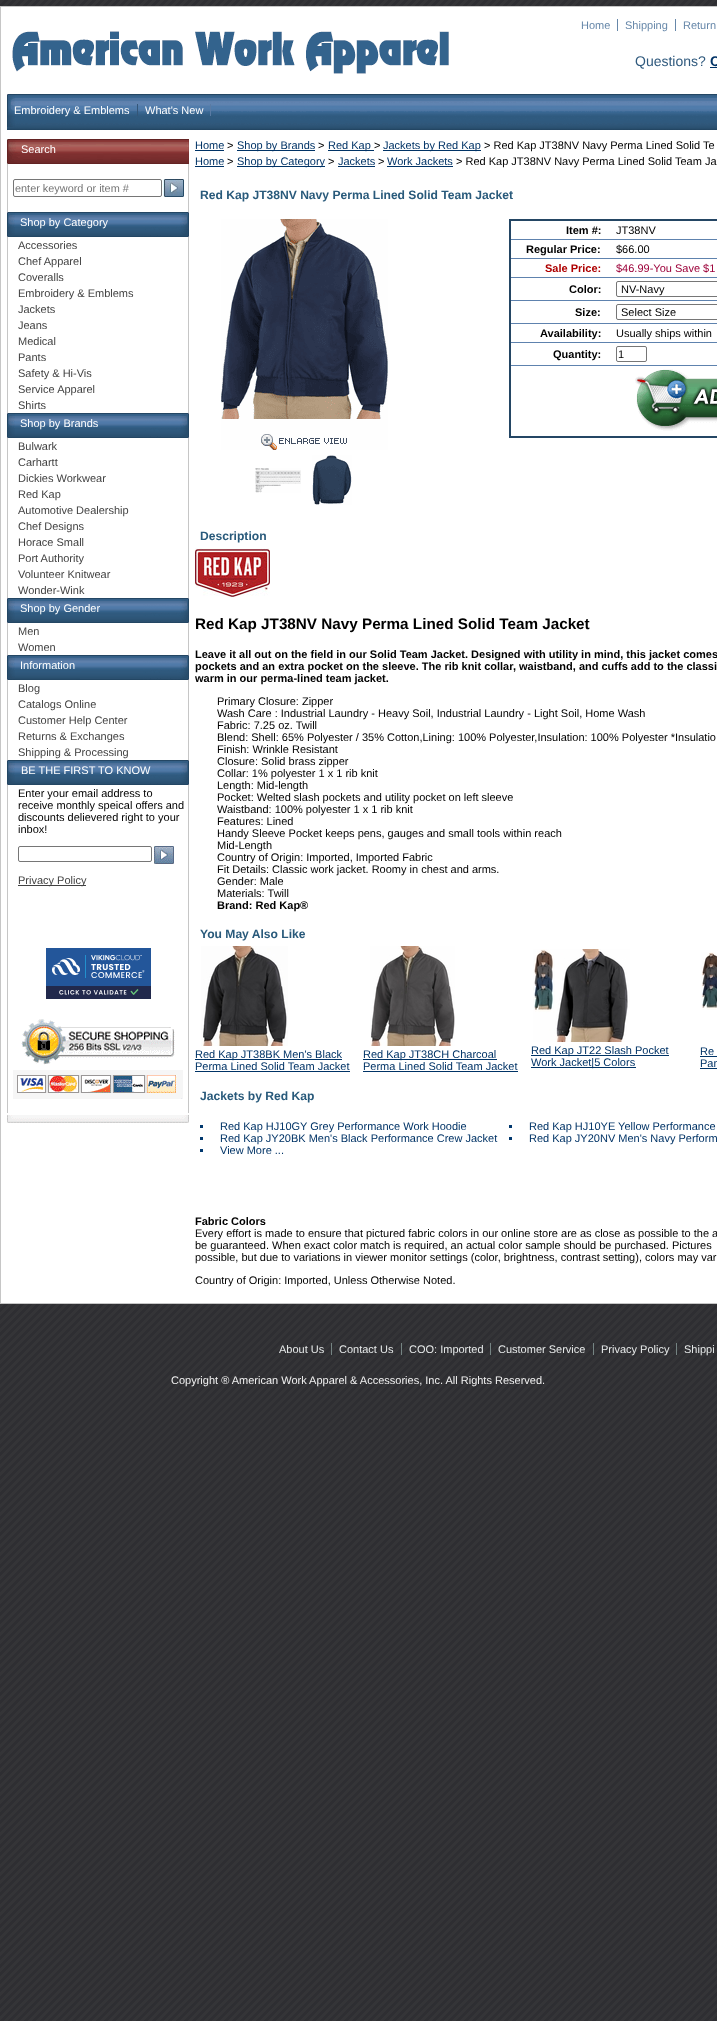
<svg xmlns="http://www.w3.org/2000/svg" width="717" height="2021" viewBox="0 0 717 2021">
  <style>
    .t1 { font: 11px Liberation Sans; fill: #6687a9; }
    .t2 { font: 14px Liberation Sans; fill: #2f597d; }
    .t3 { font: bold 14px Liberation Sans; fill: #036; }
    .t4 { font: 11px Liberation Sans; fill: #fff; }
    .t5 { font: 10.9px Liberation Sans; fill: #757575; }
    .t6 { font: 11px Liberation Sans; fill: #424242; }
    .t7 { font: 11px Liberation Sans; fill: #000; }
    .t8 { font: 11px Liberation Sans; fill: #036; }
    .t9 { font: bold 12.1px Liberation Sans; fill: #295a7b; }
    .t10 { font: bold 11px Liberation Sans; fill: #000; }
    .t11 { font: bold 11px Liberation Sans; fill: #ae0000; }
    .t12 { font: 11px Liberation Sans; fill: #9c0039; }
    .t13 { font: bold 15.25px Liberation Sans; fill: #000; }
    .t14 { font: 11px Liberation Sans; fill: #e7eaea; }
    .t15 { font: 11px Liberation Sans; fill: #f2f2f2; }
  </style>
  <rect width="100%" height="100%" fill="#fff"/>
  <image x="0" y="0" width="717" height="2021" href="images/1.png"/>
  <rect x="0.5" y="6.5" width="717" height="1297" fill="#fff" stroke="#c6c6c6"/>
  <text x="581" y="29" class="t1">Home</text>
  <rect x="617" y="19" width="1" height="12" fill="#6687a9"/>
  <text x="625" y="29" class="t1">Shipping</text>
  <rect x="675" y="19" width="1" height="12" fill="#6687a9"/>
  <text x="683" y="29" class="t1">Return</text>
  <image x="12" y="31" width="437" height="43" href="images/2.png"/>
  <text x="635" y="66" class="t2">Questions?</text>
  <text x="710" y="66" class="t3">C</text>
  <rect x="710" y="67" width="7" height="1" fill="#036"/>
  <image x="7" y="94" width="710" height="36" href="images/3.png"/>
  <image x="7" y="94" width="8" height="33" href="images/4.png"/>
  <text x="14" y="114" class="t4">Embroidery &amp; Emblems</text>
  <text x="145" y="114" class="t4">What's New</text>
  <rect x="210" y="104" width="1" height="12" fill="#5a7ba4"/>
  <rect x="137" y="104" width="1" height="12" fill="#345678"/>
  <image x="20" y="139" width="169" height="25" href="images/5.png"/>
  <image x="7" y="139" width="13" height="25" href="images/6.png"/>
  <text x="21" y="153" class="t4">Search</text>
  <rect x="188" y="164" width="1" height="48" fill="#c6c6c6"/>
  <rect x="7" y="164" width="1" height="48" fill="#c6c6c6"/>
  <rect x="13.5" y="179.5" width="148" height="17" rx="1.5" fill="none" stroke="#767676"/>
  <text x="15" y="192" class="t5">enter keyword or item #</text>
  <image x="163" y="179" width="21" height="18" href="images/7.png"/>
  <image x="15" y="212" width="174" height="25" href="images/8.png"/>
  <image x="7" y="212" width="8" height="25" href="images/9.png"/>
  <text x="20" y="226" class="t4">Shop by Category</text>
  <rect x="188" y="237" width="1" height="176" fill="#c6c6c6"/>
  <rect x="7" y="237" width="1" height="176" fill="#c6c6c6"/>
  <text x="18" y="249" class="t6">Accessories</text>
  <text x="18" y="265" class="t6">Chef Apparel</text>
  <text x="18" y="281" class="t6">Coveralls</text>
  <text x="18" y="297" class="t6">Embroidery &amp; Emblems</text>
  <text x="18" y="313" class="t6">Jackets</text>
  <text x="18" y="329" class="t6">Jeans</text>
  <text x="18" y="345" class="t6">Medical</text>
  <text x="18" y="361" class="t6">Pants</text>
  <text x="18" y="377" class="t6">Safety &amp; Hi-Vis</text>
  <text x="18" y="393" class="t6">Service Apparel</text>
  <text x="18" y="409" class="t6">Shirts</text>
  <image x="15" y="413" width="174" height="25" href="images/8.png"/>
  <image x="7" y="413" width="8" height="25" href="images/9.png"/>
  <text x="20" y="427" class="t4">Shop by Brands</text>
  <rect x="188" y="438" width="1" height="160" fill="#c6c6c6"/>
  <rect x="7" y="438" width="1" height="160" fill="#c6c6c6"/>
  <text x="18" y="450" class="t6">Bulwark</text>
  <text x="18" y="466" class="t6">Carhartt</text>
  <text x="18" y="482" class="t6">Dickies Workwear</text>
  <text x="18" y="498" class="t6">Red Kap</text>
  <text x="18" y="514" class="t6">Automotive Dealership</text>
  <text x="18" y="530" class="t6">Chef Designs</text>
  <text x="18" y="546" class="t6">Horace Small</text>
  <text x="18" y="562" class="t6">Port Authority</text>
  <text x="18" y="578" class="t6">Volunteer Knitwear</text>
  <text x="18" y="594" class="t6">Wonder-Wink</text>
  <image x="15" y="598" width="174" height="25" href="images/8.png"/>
  <image x="7" y="598" width="8" height="25" href="images/9.png"/>
  <text x="20" y="612" class="t4">Shop by Gender</text>
  <rect x="188" y="623" width="1" height="32" fill="#c6c6c6"/>
  <rect x="7" y="623" width="1" height="32" fill="#c6c6c6"/>
  <text x="18" y="635" class="t6">Men</text>
  <text x="18" y="651" class="t6">Women</text>
  <image x="15" y="655" width="174" height="25" href="images/8.png"/>
  <image x="7" y="655" width="8" height="25" href="images/9.png"/>
  <text x="20" y="669" class="t4">Information</text>
  <rect x="188" y="680" width="1" height="80" fill="#c6c6c6"/>
  <rect x="7" y="680" width="1" height="80" fill="#c6c6c6"/>
  <text x="18" y="692" class="t6">Blog</text>
  <text x="18" y="708" class="t6">Catalogs Online</text>
  <text x="18" y="724" class="t6">Customer Help Center</text>
  <text x="18" y="740" class="t6">Returns &amp; Exchanges</text>
  <text x="18" y="756" class="t6">Shipping &amp; Processing</text>
  <image x="15" y="760" width="174" height="25" href="images/8.png"/>
  <image x="7" y="760" width="8" height="25" href="images/9.png"/>
  <text x="21" y="774" class="t4">BE THE FIRST TO KNOW</text>
  <rect x="188" y="785" width="1" height="328" fill="#c6c6c6"/>
  <rect x="7" y="785" width="1" height="328" fill="#c6c6c6"/>
  <text x="18" y="797" class="t7">Enter your email address to</text>
  <text x="18" y="809" class="t7">receive monthly speical offers and</text>
  <text x="18" y="821" class="t7">discounts delievered right to your</text>
  <text x="18" y="833" class="t7">inbox!</text>
  <rect x="18.5" y="846.5" width="133" height="15" rx="1.5" fill="none" stroke="#767676"/>
  <image x="154" y="846" width="20" height="18" href="images/10.png"/>
  <rect x="18" y="885" width="68" height="1" fill="#424242"/>
  <text x="18" y="884" class="t6">Privacy Policy</text>
  <image x="46" y="948" width="105" height="51" href="images/11.png"/>
  <image x="21" y="1019" width="154" height="46" href="images/12.png"/>
  <image x="13" y="1070" width="170" height="29" href="images/13.png"/>
  <image x="7" y="1115" width="182" height="8" href="images/14.png"/>
  <text x="195" y="149" class="t8">Home</text>
  <rect x="195" y="150" width="29" height="1" fill="#036"/>
  <text x="227" y="149" class="t7">&gt;</text>
  <rect x="237" y="150" width="78" height="1" fill="#036"/>
  <text x="237" y="149" class="t8">Shop by Brands</text>
  <text x="318" y="149" class="t7">&gt;</text>
  <rect x="328" y="150" width="46" height="1" fill="#036"/>
  <text x="328" y="149" class="t8">Red Kap</text>
  <text x="374" y="149" class="t7">&gt;</text>
  <rect x="383" y="150" width="98" height="1" fill="#036"/>
  <text x="383" y="149" class="t8">Jackets by Red Kap</text>
  <text x="484" y="149" class="t7">&gt; Red Kap JT38NV Navy Perma Lined Solid Te</text>
  <text x="195" y="165" class="t8">Home</text>
  <rect x="195" y="166" width="29" height="1" fill="#036"/>
  <text x="227" y="165" class="t7">&gt;</text>
  <rect x="237" y="166" width="88" height="1" fill="#036"/>
  <text x="237" y="165" class="t8">Shop by Category</text>
  <text x="328" y="165" class="t7">&gt;</text>
  <text x="338" y="165" class="t8">Jackets</text>
  <rect x="338" y="166" width="37" height="1" fill="#036"/>
  <text x="378" y="165" class="t7">&gt;</text>
  <text x="387" y="165" class="t8">Work Jackets</text>
  <rect x="387" y="166" width="66" height="1" fill="#036"/>
  <text x="456" y="165" class="t7">&gt; Red Kap JT38NV Navy Perma Lined Solid Team Ja</text>
  <text x="200" y="199" class="t9">Red Kap JT38NV Navy Perma Lined Solid Team Jacket</text>
  <image x="221" y="219" width="167" height="231" href="images/15.png"/>
  <image x="255" y="468" width="46" height="25" href="images/16.png"/>
  <image x="312" y="455" width="40" height="50" href="images/17.png"/>
  <rect x="509" y="219" width="208" height="2" fill="#244664"/>
  <rect x="509" y="436" width="208" height="2" fill="#244664"/>
  <rect x="510" y="239" width="207" height="1" fill="#5e82ae"/>
  <rect x="510" y="258" width="207" height="1" fill="#5e82ae"/>
  <rect x="510" y="277" width="207" height="1" fill="#5e82ae"/>
  <rect x="510" y="300" width="207" height="1" fill="#5e82ae"/>
  <rect x="510" y="323" width="207" height="1" fill="#5e82ae"/>
  <rect x="510" y="342" width="207" height="1" fill="#5e82ae"/>
  <rect x="510" y="365" width="207" height="1" fill="#5e82ae"/>
  <rect x="509" y="219" width="2" height="219" fill="#244664"/>
  <text x="566" y="234" class="t10">Item #:</text>
  <text x="616" y="234" class="t7">JT38NV</text>
  <text x="526" y="253" class="t10">Regular Price:</text>
  <text x="616" y="253" class="t7">$66.00</text>
  <text x="545" y="272" class="t11">Sale Price:</text>
  <text x="616" y="272" class="t12">$46.99-You Save $1</text>
  <text x="569" y="293" class="t10">Color:</text>
  <rect x="616.5" y="281.5" width="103" height="15" rx="1.5" fill="none" stroke="#767676"/>
  <text x="621" y="293" class="t7">NV-Navy</text>
  <text x="575" y="316" class="t10">Size:</text>
  <rect x="616.5" y="304.5" width="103" height="15" rx="1.5" fill="none" stroke="#767676"/>
  <text x="621" y="316" class="t7">Select Size</text>
  <text x="540" y="337" class="t10">Availability:</text>
  <text x="616" y="337" class="t7">Usually ships within</text>
  <text x="553" y="358" class="t10">Quantity:</text>
  <rect x="616.5" y="346.5" width="30" height="15" rx="1.5" fill="none" stroke="#767676"/>
  <text x="618" y="358" class="t7">1</text>
  <image x="635" y="369" width="82" height="62" href="images/18.png"/>
  <text x="200" y="540" class="t9">Description</text>
  <image x="195" y="548" width="75" height="50" href="images/19.png"/>
  <text x="195" y="629" class="t13">Red Kap JT38NV Navy Perma Lined Solid Team Jacket</text>
  <text x="195" y="658" class="t10">Leave it all out on the field in our Solid Team Jacket. Designed with utility in mind, this jacket comes</text>
  <text x="195" y="670" class="t10">pockets and an extra pocket on the sleeve. The rib knit collar, waistband, and cuffs add to the classi</text>
  <text x="195" y="682" class="t10">warm in our perma-lined team jacket.</text>
  <text x="217" y="705" class="t7">Primary Closure: Zipper</text>
  <text x="217" y="717" class="t7">Wash Care : Industrial Laundry - Heavy Soil, Industrial Laundry - Light Soil, Home Wash</text>
  <text x="217" y="729" class="t7">Fabric: 7.25 oz. Twill</text>
  <text x="217" y="741" class="t7">Blend: Shell: 65% Polyester / 35% Cotton,Lining: 100% Polyester,Insulation: 100% Polyester *Insulatio</text>
  <text x="217" y="753" class="t7">Finish: Wrinkle Resistant</text>
  <text x="217" y="765" class="t7">Closure: Solid brass zipper</text>
  <text x="217" y="777" class="t7">Collar: 1% polyester 1 x 1 rib knit</text>
  <text x="217" y="789" class="t7">Length: Mid-length</text>
  <text x="217" y="801" class="t7">Pocket: Welted slash pockets and utility pocket on left sleeve</text>
  <text x="217" y="813" class="t7">Waistband: 100% polyester 1 x 1 rib knit</text>
  <text x="217" y="825" class="t7">Features: Lined</text>
  <text x="217" y="837" class="t7">Handy Sleeve Pocket keeps pens, gauges and small tools within reach</text>
  <text x="217" y="849" class="t7">Mid-Length</text>
  <text x="217" y="861" class="t7">Country of Origin: Imported, Imported Fabric</text>
  <text x="217" y="873" class="t7">Fit Details: Classic work jacket. Roomy in chest and arms.</text>
  <text x="217" y="885" class="t7">Gender: Male</text>
  <text x="217" y="897" class="t7">Materials: Twill</text>
  <text x="217" y="909" class="t10">Brand: Red Kap®</text>
  <text x="200" y="938" class="t9">You May Also Like</text>
  <image x="201" y="946" width="87" height="100" href="images/20.png"/>
  <rect x="195" y="1059" width="147" height="1" fill="#036"/>
  <text x="195" y="1058" class="t8">Red Kap JT38BK Men's Black</text>
  <text x="195" y="1070" class="t8">Perma Lined Solid Team Jacket</text>
  <rect x="195" y="1071" width="155" height="1" fill="#036"/>
  <image x="370" y="946" width="85" height="100" href="images/21.png"/>
  <rect x="363" y="1059" width="134" height="1" fill="#036"/>
  <text x="363" y="1058" class="t8">Red Kap JT38CH Charcoal</text>
  <text x="363" y="1070" class="t8">Perma Lined Solid Team Jacket</text>
  <rect x="363" y="1071" width="155" height="1" fill="#036"/>
  <image x="533" y="949" width="97" height="93" href="images/22.png"/>
  <rect x="531" y="1055" width="138" height="1" fill="#036"/>
  <text x="531" y="1054" class="t8">Red Kap JT22 Slash Pocket</text>
  <rect x="531" y="1067" width="105" height="1" fill="#036"/>
  <text x="531" y="1066" class="t8">Work Jacket|5 Colors</text>
  <image x="701" y="952" width="16" height="58" href="images/23.png"/>
  <text x="700" y="1055" class="t8">Re</text>
  <rect x="700" y="1056" width="17" height="1" fill="#036"/>
  <text x="700" y="1067" class="t8">Pan</text>
  <rect x="700" y="1068" width="17" height="1" fill="#036"/>
  <text x="200" y="1100" class="t9">Jackets by Red Kap</text>
  <rect x="200" y="1125" width="3" height="3" fill="#01386e"/>
  <text x="220" y="1130" class="t8">Red Kap HJ10GY Grey Performance Work Hoodie</text>
  <rect x="509" y="1125" width="3" height="3" fill="#01386e"/>
  <text x="529" y="1130" class="t8">Red Kap HJ10YE Yellow Performance</text>
  <rect x="200" y="1137" width="3" height="3" fill="#01386e"/>
  <text x="220" y="1142" class="t8">Red Kap JY20BK Men's Black Performance Crew Jacket</text>
  <rect x="509" y="1137" width="3" height="3" fill="#01386e"/>
  <text x="529" y="1142" class="t8">Red Kap JY20NV Men's Navy Perform</text>
  <rect x="200" y="1149" width="3" height="3" fill="#01386e"/>
  <text x="220" y="1154" class="t8">View More ...</text>
  <text x="195" y="1225" class="t10">Fabric Colors</text>
  <text x="195" y="1237" class="t7">Every effort is made to ensure that pictured fabric colors in our online store are as close as possible to the a</text>
  <text x="195" y="1249" class="t7">be guaranteed. When exact color match is required, an actual color sample should be purchased. Pictures</text>
  <text x="195" y="1261" class="t7">possible, but due to variations in viewer monitor settings (color, brightness, contrast setting), colors may var</text>
  <text x="195" y="1284" class="t7">Country of Origin: Imported, Unless Otherwise Noted.</text>
  <text x="279" y="1353" class="t14">About Us</text>
  <rect x="331" y="1343" width="1" height="12" fill="#758483"/>
  <text x="339" y="1353" class="t14">Contact Us</text>
  <rect x="401" y="1343" width="1" height="12" fill="#758483"/>
  <text x="409" y="1353" class="t14">COO: Imported</text>
  <rect x="490" y="1343" width="1" height="12" fill="#758483"/>
  <text x="498" y="1353" class="t14">Customer Service</text>
  <rect x="593" y="1343" width="1" height="12" fill="#758483"/>
  <text x="601" y="1353" class="t14">Privacy Policy</text>
  <rect x="676" y="1343" width="1" height="12" fill="#758483"/>
  <text x="684" y="1353" class="t14">Shippi</text>
  <text x="171" y="1384" class="t15">Copyright ® American Work Apparel &amp; Accessories, Inc. All Rights Reserved.</text>
</svg>
